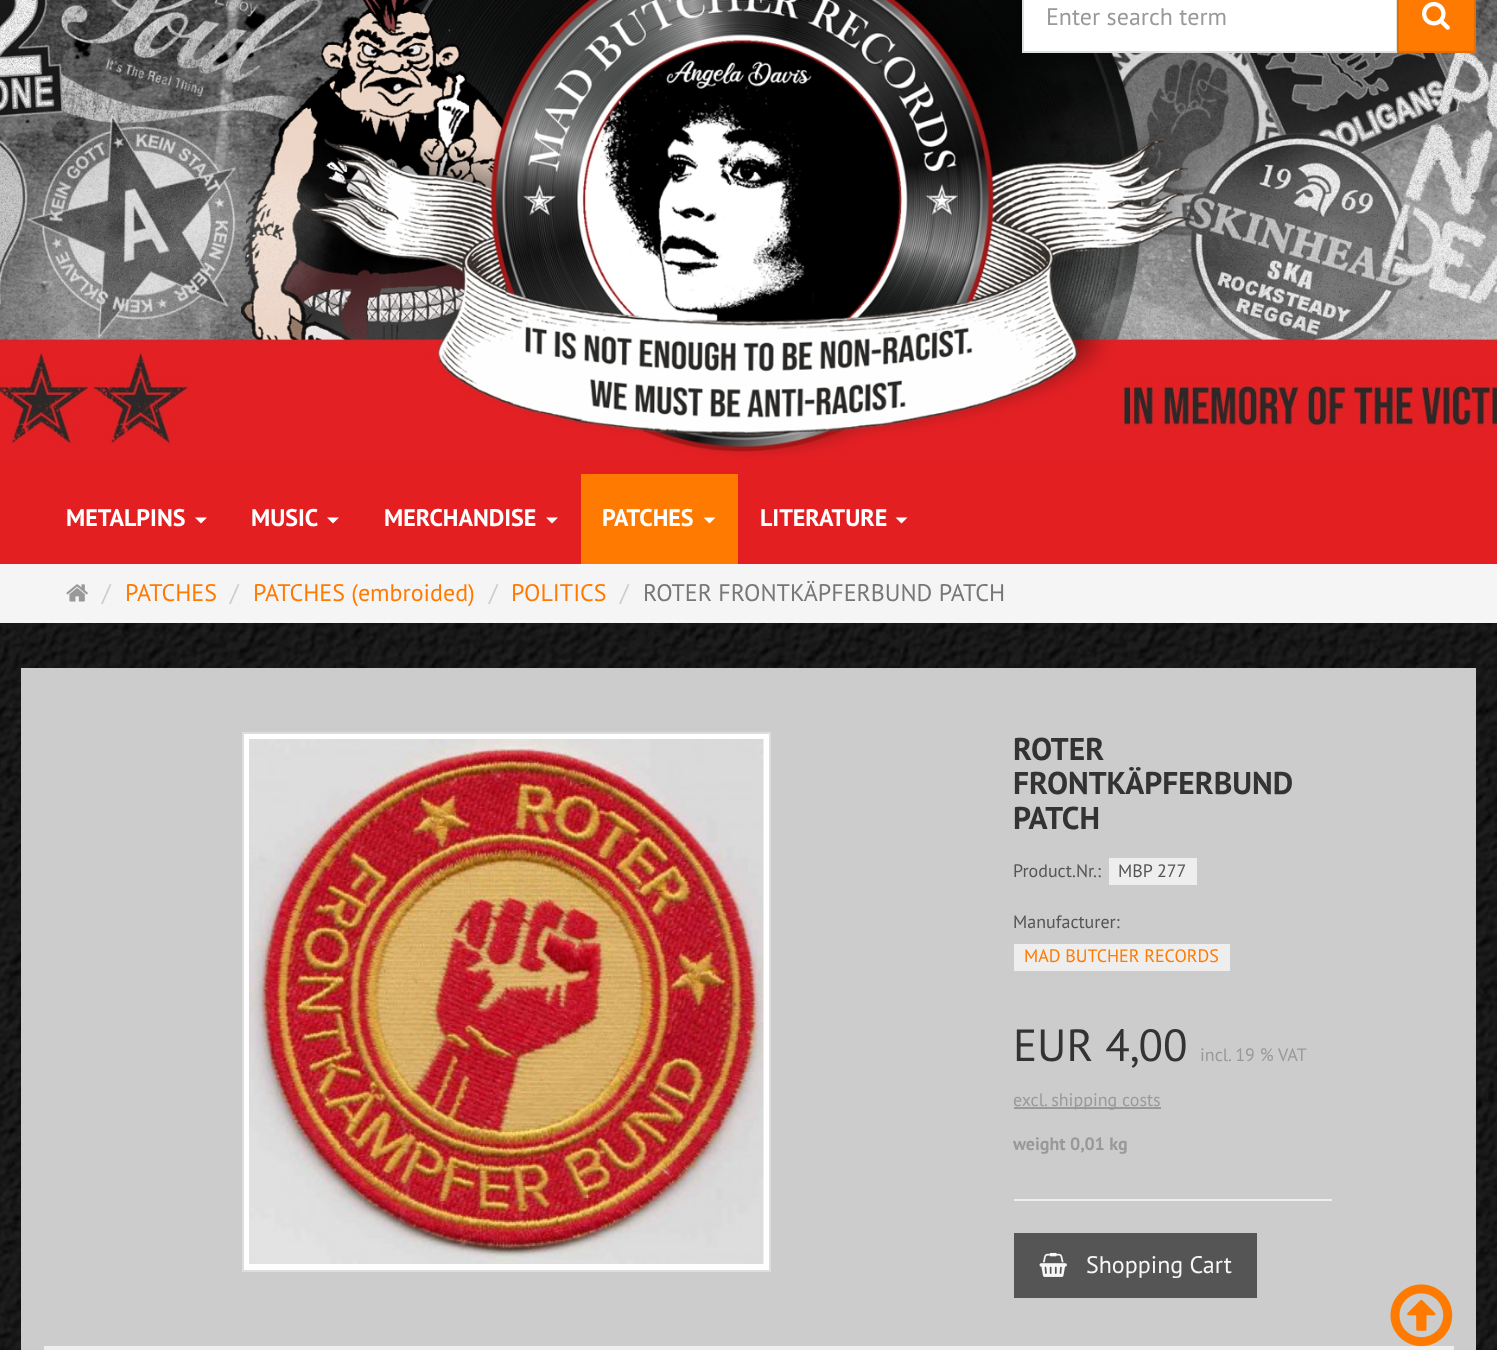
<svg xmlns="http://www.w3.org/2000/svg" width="1497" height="1350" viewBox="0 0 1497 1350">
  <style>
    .t1 { font: 24px PT Sans; fill: #999; }
    .t2 { font: bold 24px PT Sans; fill: #fff; }
    .t3 { font: 24px PT Sans; fill: #ccc; }
    .t4 { font: 24px PT Sans; fill: #ff7a00; }
    .t5 { font: 24px PT Sans; fill: #777; }
    .t6 { font: bold 31.5px PT Sans; fill: #333; }
    .t7 { font: 18px PT Sans; fill: #555; }
    .t8 { font: 18px PT Sans; fill: #ff7a00; }
    .t9 { font: 45px PT Sans; fill: #333; }
    .t10 { font: 18px PT Sans; fill: #999; }
    .t11 { font: bold 18px PT Sans; fill: #999; }
    .t12 { font: 24px PT Sans; fill: #f7f7f7; }
  </style>
  <rect width="100%" height="100%" fill="#fff"/>
  <image x="0" y="623" width="1497" height="727" href="images/1.png"/>
  <rect x="0" y="458" width="1497" height="106" fill="#e31f21"/>
  <image x="0" y="0" width="1497" height="458" href="images/2.png"/>
  <rect x="1023" y="-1" width="374" height="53" fill="#fff" stroke="#e0e0e0" stroke-width="2"/>
  <text x="1046" y="25" class="t1">Enter search term</text>
  <rect x="1398" y="-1" width="77" height="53" fill="#ff7a00" stroke="#e66e00" stroke-width="2"/>
  <image x="1422" y="1" width="28" height="29" href="images/3.png"/>
  <text x="66" y="526" class="t2">METALPINS</text>
  <path d="M195 517.5H207L201 523.5Z" fill="#fff"/>
  <text x="251" y="526" class="t2">MUSIC</text>
  <path d="M327 517.5H339L333 523.5Z" fill="#fff"/>
  <text x="384" y="526" class="t2">MERCHANDISE</text>
  <path d="M546 517.5H558L552 523.5Z" fill="#fff"/>
  <rect x="581" y="474" width="157" height="90" fill="#ff7a00"/>
  <text x="602" y="526" class="t2">PATCHES</text>
  <path d="M703.5 517.5H715.5L709.5 523.5Z" fill="#fff"/>
  <text x="760" y="526" class="t2">LITERATURE</text>
  <path d="M895.5 517.5H907.5L901.5 523.5Z" fill="#fff"/>
  <rect x="0" y="564" width="1497" height="59" fill="#f5f5f5"/>
  <image x="66" y="584" width="22" height="18" href="images/4.png"/>
  <text x="102" y="601" class="t3">/</text>
  <text x="125" y="601" class="t4">PATCHES</text>
  <text x="230" y="601" class="t3">/</text>
  <text x="253" y="601" class="t4">PATCHES (embroided)</text>
  <text x="489" y="601" class="t3">/</text>
  <text x="511" y="601" class="t4">POLITICS</text>
  <text x="620" y="601" class="t3">/</text>
  <text x="643" y="601" class="t5">ROTER FRONTKÄPFERBUND PATCH</text>
  <rect x="21" y="668" width="1455" height="682" fill="#ccc"/>
  <rect x="243" y="733" width="527" height="538" fill="#fff" stroke="#ddd" stroke-width="2"/>
  <image x="249" y="739" width="515" height="525" href="images/5.png"/>
  <text x="1013" y="760" class="t6">ROTER</text>
  <text x="1013" y="794" class="t6">FRONTKÄPFERBUND</text>
  <text x="1013" y="829" class="t6">PATCH</text>
  <text x="1013" y="877" class="t7">Product.Nr.:</text>
  <rect x="1109" y="858" width="88" height="27" fill="#eee"/>
  <text x="1118" y="877" class="t7">MBP 277</text>
  <text x="1013" y="928" class="t7">Manufacturer:</text>
  <rect x="1014" y="944" width="216" height="27" fill="#eee"/>
  <text x="1024" y="962" class="t8">MAD BUTCHER RECORDS</text>
  <text x="1013" y="1061" class="t9">EUR 4,00</text>
  <text x="1200" y="1061" class="t10">incl. 19 % VAT</text>
  <rect x="1014" y="1107" width="147" height="2" fill="#999"/>
  <text x="1013" y="1106" class="t10">excl. shipping costs</text>
  <text x="1013" y="1150" class="t11">weight 0,01 kg</text>
  <rect x="1014" y="1199" width="318" height="2" fill="#eee"/>
  <rect x="1014" y="1233" width="243" height="65" fill="#555"/>
  <image x="1039" y="1252" width="28" height="25" href="images/6.png"/>
  <text x="1086" y="1273" class="t12">Shopping Cart</text>
  <rect x="44" y="1346" width="1410" height="4" fill="#eee"/>
  <image x="1390" y="1284" width="63" height="63" href="images/7.png"/>
</svg>
